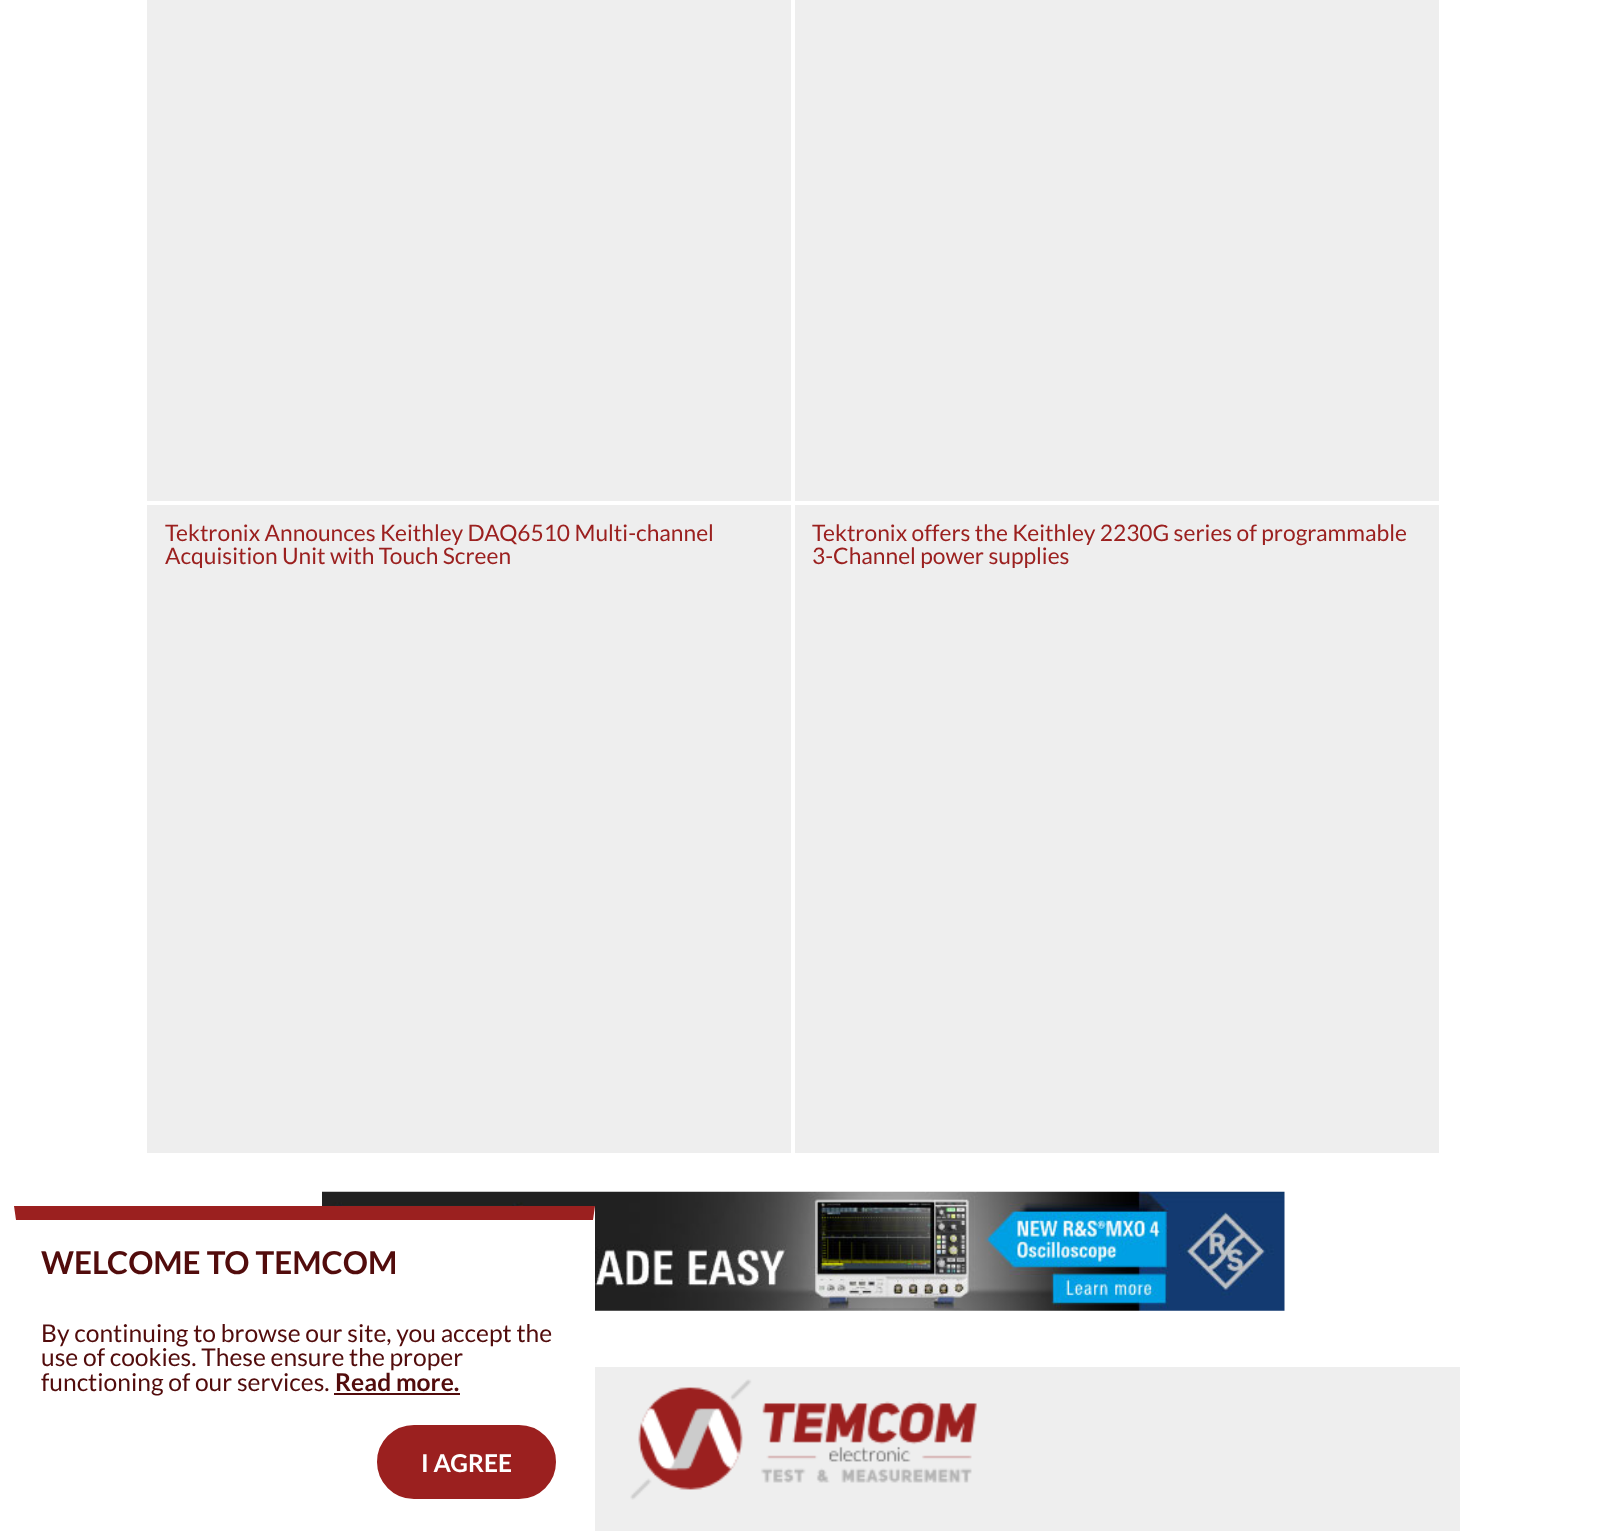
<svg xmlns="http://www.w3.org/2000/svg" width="1605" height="1531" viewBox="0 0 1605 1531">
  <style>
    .t1 { font: 22.75px Lato; fill: #9b201f; }
    .t2 { font: bold 31.5px Lato; fill: #520c0c; }
    .t3 { font: 24.6px Lato; fill: #520c0c; }
    .t4 { font: bold 24.6px Lato; fill: #520c0c; }
    .t5 { font: bold 24.5px Lato; fill: #fff; }
  </style>
  <rect width="100%" height="100%" fill="#fff"/>
  <rect x="147" y="0" width="644" height="501" fill="#eee"/>
  <rect x="795" y="0" width="644" height="501" fill="#eee"/>
  <rect x="147" y="505" width="644" height="648" fill="#eee"/>
  <text x="165" y="541" class="t1">Tektronix Announces Keithley DAQ6510 Multi-channel</text>
  <text x="165" y="564" class="t1">Acquisition Unit with Touch Screen</text>
  <rect x="795" y="505" width="644" height="648" fill="#eee"/>
  <text x="812" y="541" class="t1">Tektronix offers the Keithley 2230G series of programmable</text>
  <text x="812" y="564" class="t1">3-Channel power supplies</text>
  <image x="322" y="1191" width="963" height="120" href="images/1.png"/>
  <rect x="595" y="1367" width="865" height="164" fill="#eee"/>
  <image x="630" y="1379" width="347" height="121" href="images/2.png"/>
  <rect x="322" y="1206" width="273" height="105" fill="#fff"/>
  <path d="M14 1206H595L593 1220H16Z" fill="#9b201f"/>
  <text x="41" y="1274" class="t2">WELCOME TO TEMCOM</text>
  <text x="41" y="1342" class="t3">By continuing to browse our site, you accept the</text>
  <text x="41" y="1366" class="t3">use of cookies. These ensure the proper</text>
  <text x="41" y="1391" class="t3">functioning of our services.</text>
  <text x="335" y="1391" class="t4">Read more.</text>
  <rect x="334" y="1393" width="126" height="2" fill="#520c0c"/>
  <rect x="375" y="1423" width="183" height="78" rx="39" fill="#9b201f" stroke="#fff" stroke-width="4"/>
  <text x="421" y="1472" class="t5">I AGREE</text>
</svg>
